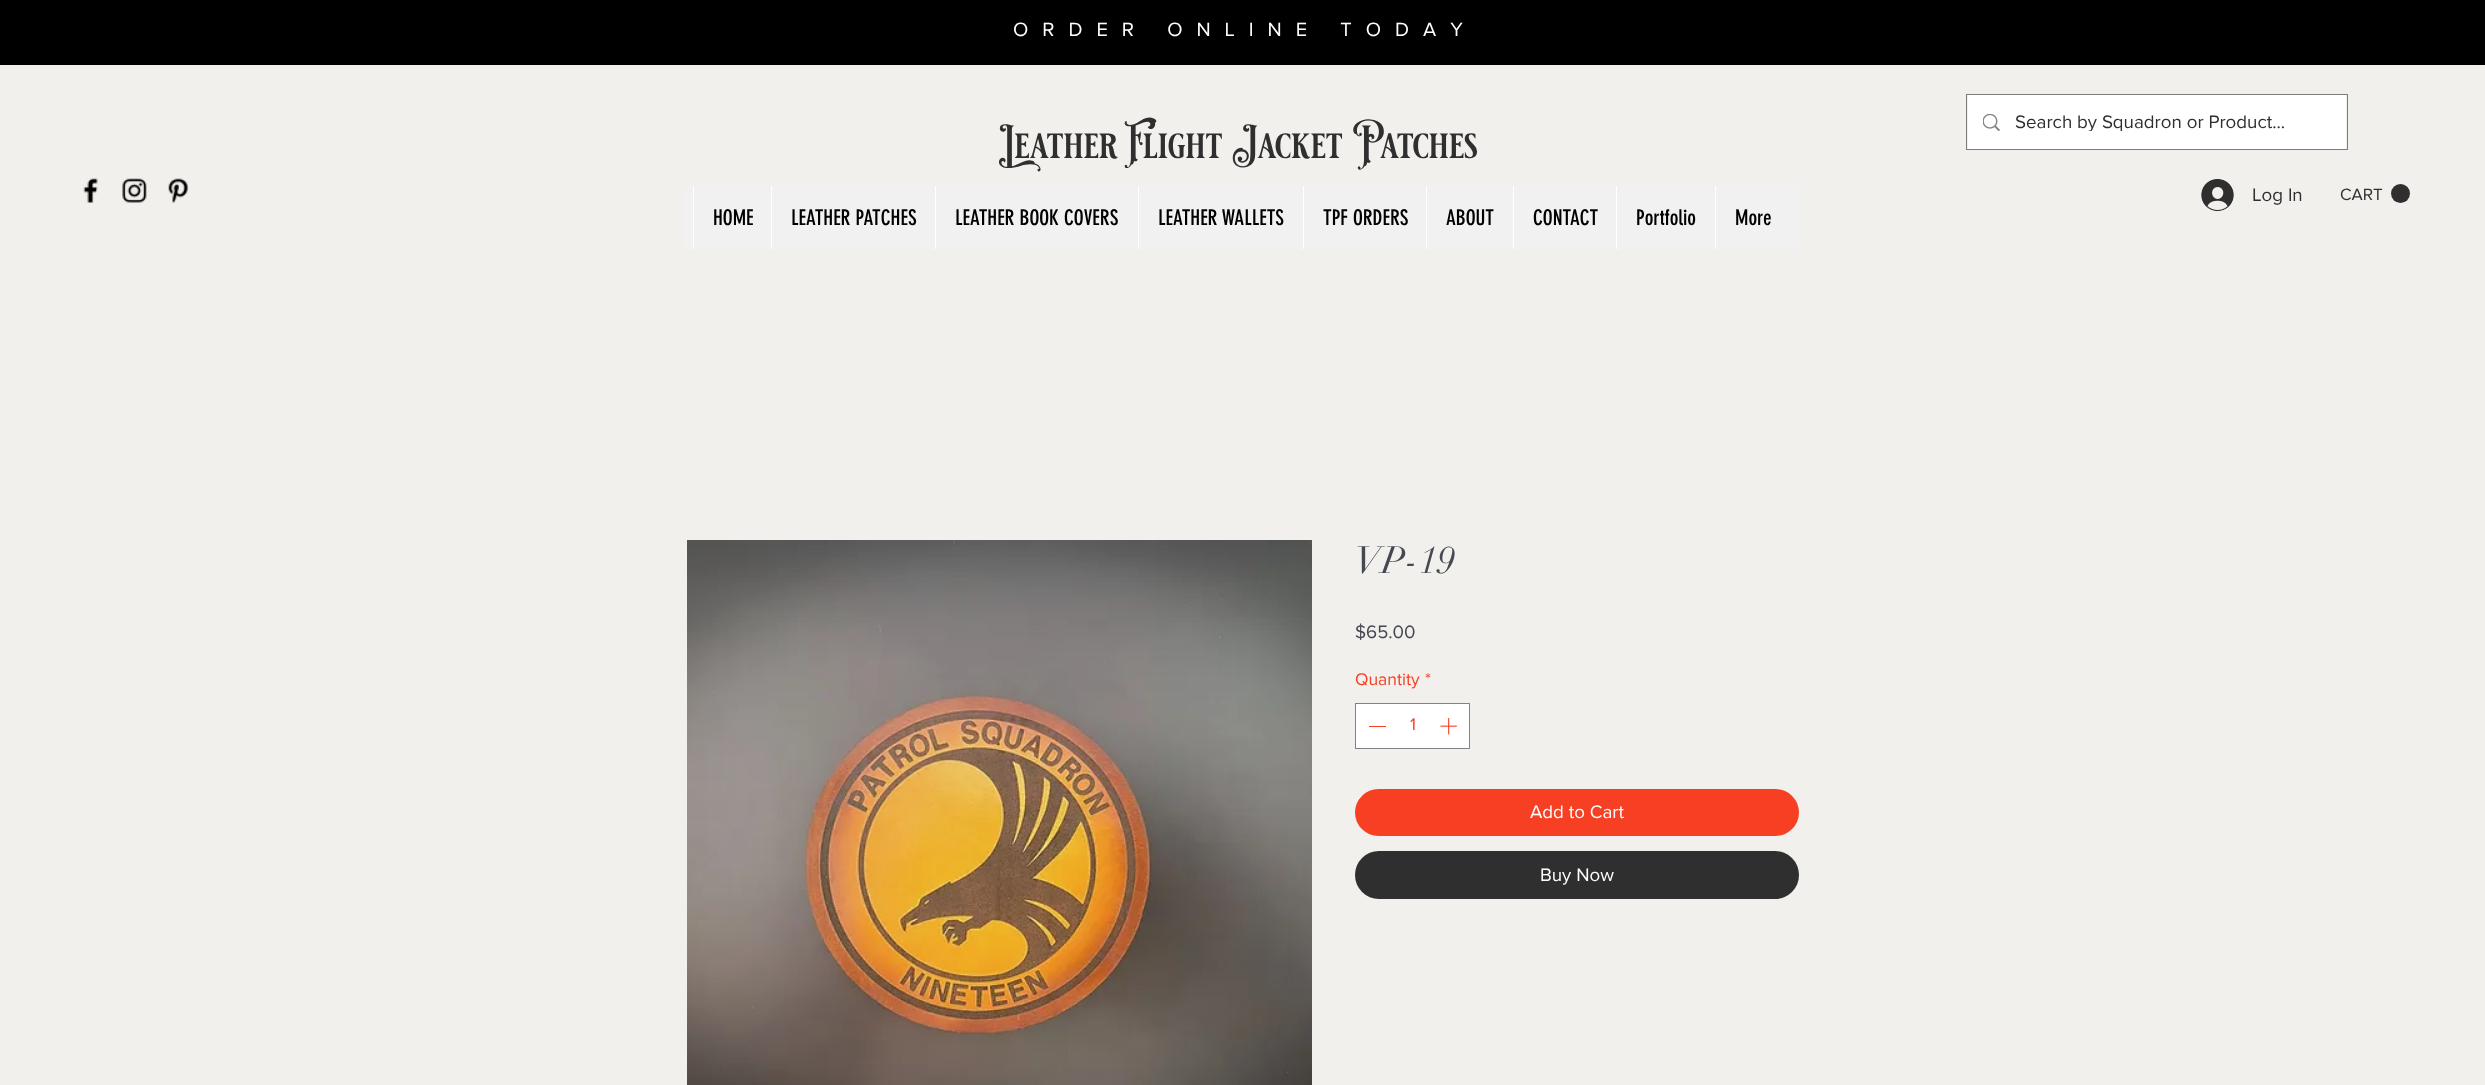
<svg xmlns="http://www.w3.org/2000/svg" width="2485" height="1085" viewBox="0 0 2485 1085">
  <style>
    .t1 { font: 20px 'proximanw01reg'; letter-spacing: 14px; fill: #fff; }
    .t2 { font: 35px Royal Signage; fill: #2f2f30; }
    .t3 { font: 18.75px 'proximanw01reg'; fill: #2f2f30; }
    .t4 { font: 21.25px 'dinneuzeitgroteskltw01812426'; fill: #000; }
    .t5 { font: 17px 'proximanw01reg'; fill: #2f2f30; }
    .t6 { font: 37.5px didot; fill: #454751; }
    .t7 { font: 18.75px 'proximanw01reg'; fill: #454751; }
    .t8 { font: 17.5px 'proximanw01reg'; fill: #f73f23; }
    .t9 { font: 18.75px 'proximanw01reg'; fill: #fff; }
  </style>
  <defs>
    <clipPath id="clip1"><rect x="2015" y="111" width="279" height="20"/></clipPath>
  </defs>
  <rect width="100%" height="100%" fill="#f1f0ec"/>
  <image x="83" y="178" width="15" height="25" href="images/1.png"/>
  <image x="122" y="178" width="25" height="25" href="images/2.png"/>
  <image x="168" y="178" width="21" height="25" href="images/3.png"/>
  <rect x="0" y="0" width="2485" height="65" fill="#000"/>
  <text x="1013" y="36" class="t1">ORDER ONLINE TODAY</text>
  <text x="1004" y="158" class="t2">Leather Flight Jacket Patches</text>
  <rect x="1966.5" y="94.5" width="381" height="55" fill="none" stroke="#7d7c7b"/>
  <rect x="1968" y="95" width="378" height="54" fill="#fff"/>
  <image x="1983" y="114" width="17" height="17" href="images/4.png"/>
  <g clip-path="url(#clip1)">
    <text x="2015" y="128" class="t3">Search by Squadron or Product...</text>
  </g>
  <rect x="684" y="186" width="1115" height="63" fill="#f1f1f1"/>
  <rect x="693" y="186" width="1" height="63" fill="#fff"/>
  <text x="713" y="225" class="t4">HOME</text>
  <rect x="771" y="186" width="1" height="63" fill="#fff"/>
  <text x="791" y="225" class="t4">LEATHER PATCHES</text>
  <rect x="935" y="186" width="1" height="63" fill="#fff"/>
  <text x="955" y="225" class="t4">LEATHER BOOK COVERS</text>
  <rect x="1138" y="186" width="1" height="63" fill="#fff"/>
  <text x="1158" y="225" class="t4">LEATHER WALLETS</text>
  <rect x="1303" y="186" width="1" height="63" fill="#fff"/>
  <text x="1323" y="225" class="t4">TPF ORDERS</text>
  <rect x="1426" y="186" width="1" height="63" fill="#fff"/>
  <text x="1446" y="225" class="t4">ABOUT</text>
  <rect x="1513" y="186" width="1" height="63" fill="#fff"/>
  <text x="1533" y="225" class="t4">CONTACT</text>
  <rect x="1616" y="186" width="1" height="63" fill="#fff"/>
  <text x="1636" y="225" class="t4">Portfolio</text>
  <rect x="1715" y="186" width="1" height="63" fill="#fff"/>
  <text x="1735" y="225" class="t4">More</text>
  <image x="2201" y="179" width="33" height="32" href="images/5.png"/>
  <text x="2252" y="201" class="t3">Log In</text>
  <circle cx="2400.5" cy="193.5" r="9.5" fill="#2f2f30"/>
  <text x="2340" y="200" class="t5">CART</text>
  <image x="687" y="540" width="625" height="545" href="images/6.png"/>
  <text x="1355" y="573" class="t6">VP-19</text>
  <text x="1355" y="638" class="t7">$65.00</text>
  <text x="1355" y="685" class="t8">Quantity</text>
  <text x="1425" y="685" class="t8">*</text>
  <rect x="1355.5" y="703.5" width="114" height="45" fill="#fff" stroke="#828283"/>
  <rect x="1369" y="726" width="17" height="1" fill="#f73f23"/>
  <text x="1410" y="730" class="t8">1</text>
  <image x="1440" y="717" width="17" height="18" href="images/7.png"/>
  <rect x="1355" y="789" width="444" height="47" rx="23.5" fill="#f73f23"/>
  <text x="1530" y="818" class="t9">Add to Cart</text>
  <rect x="1355" y="851" width="444" height="48" rx="24" fill="#2f2f30"/>
  <text x="1540" y="881" class="t9">Buy Now</text>
</svg>
